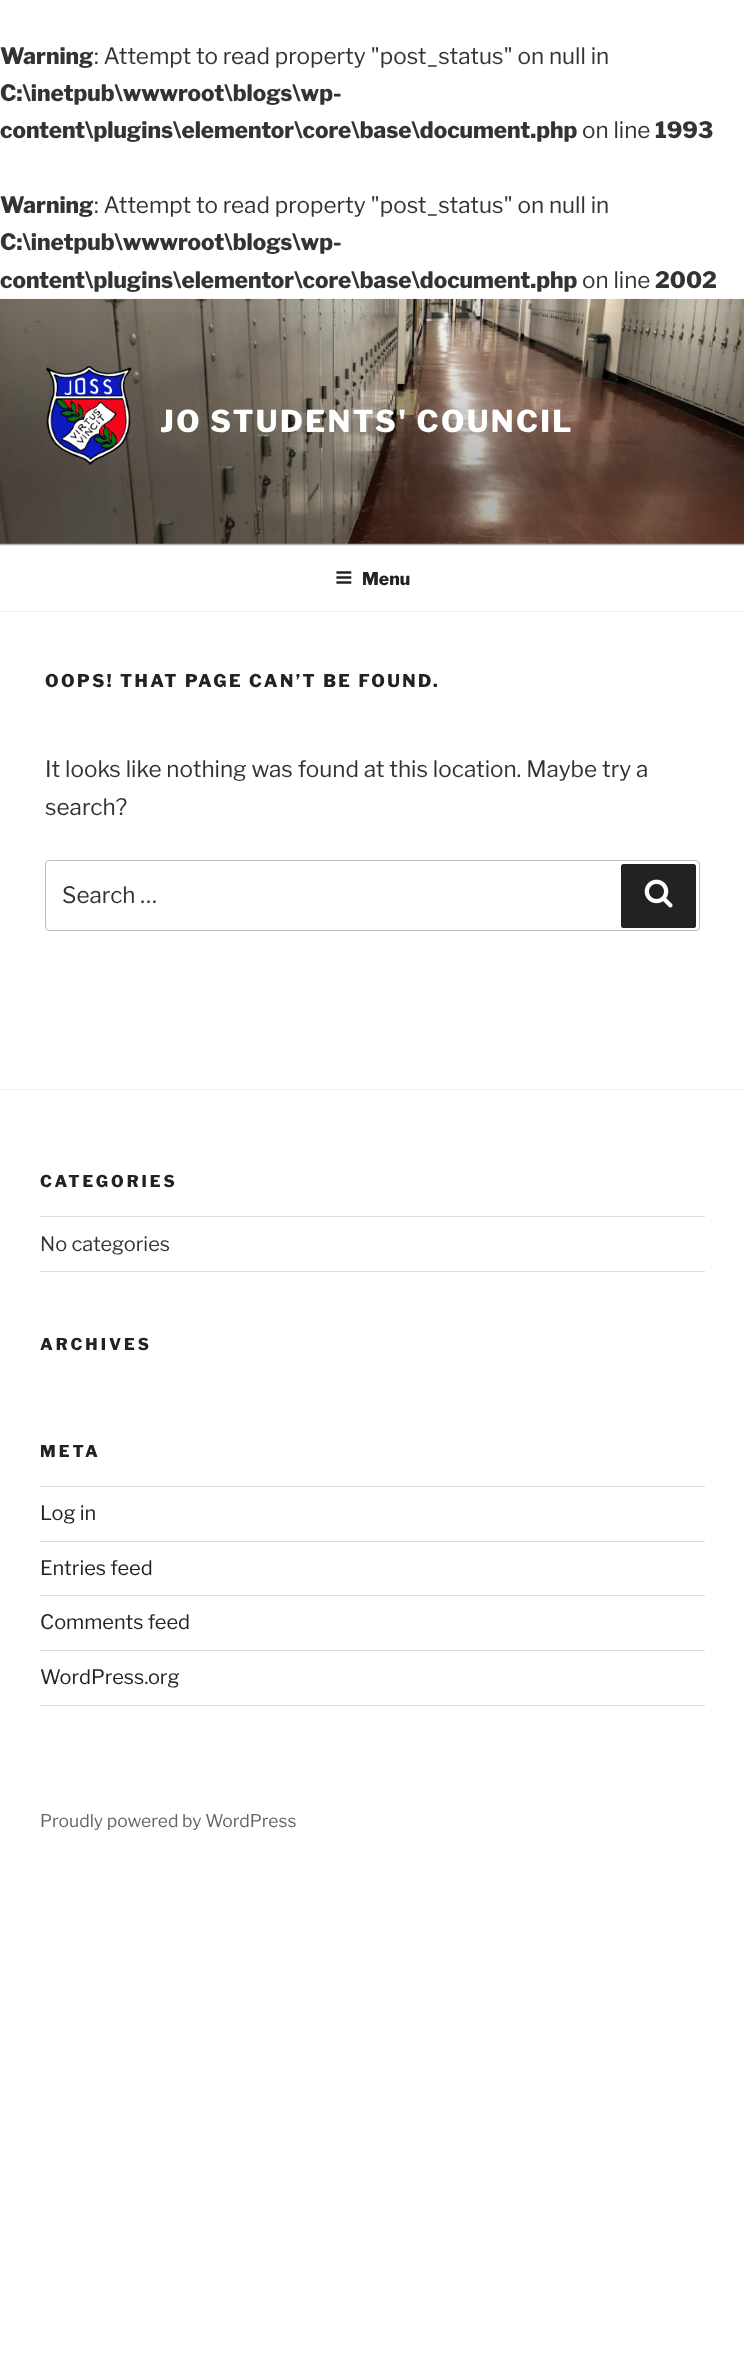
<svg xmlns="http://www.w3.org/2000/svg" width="744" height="2377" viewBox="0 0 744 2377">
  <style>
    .t1 { font: 100 22.5px Libre Franklin; fill: #333; }
    .t2 { font: 100 22.5px 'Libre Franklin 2'; fill: #333; }
    .t3 { font: 100 30px Libre Franklin; letter-spacing: 2.4px; fill: #fff; }
    .t4 { font: 100 17.5px Libre Franklin; fill: #222; }
    .t5 { font: 100 17.5px Libre Franklin; letter-spacing: 2.45px; fill: #222; }
    .t6 { font: 100 16.25px Libre Franklin; letter-spacing: 3px; fill: #222; }
    .t7 { font: 100 20px 'Libre Franklin 2'; fill: #333; }
    .t8 { font: 100 20px 'Libre Franklin 2'; fill: #222; }
    .t9 { font: 100 17.5px 'Libre Franklin 2'; fill: #666; }
  </style>
  <defs>
    <linearGradient id="g1" gradientUnits="userSpaceOnUse" x1="373" y1="299" x2="373" y2="545"><stop offset="0" stop-color="#000" stop-opacity="0"/><stop offset="0.75" stop-color="#000" stop-opacity="0.3"/><stop offset="1" stop-color="#000" stop-opacity="0.3"/></linearGradient>
  </defs>
  <rect width="100%" height="100%" fill="#fff"/>
  <text x="0" y="64" class="t1">Warning</text>
  <text x="94" y="64" class="t2">: Attempt to read property "post_status" on null in</text>
  <text x="0" y="101" class="t1">C:\inetpub\wwwroot\blogs\wp-</text>
  <text x="0" y="138" class="t1">content\plugins\elementor\core\base\document.php</text>
  <text x="582" y="138" class="t2">on line</text>
  <text x="655" y="138" class="t1">1993</text>
  <text x="0" y="213" class="t1">Warning</text>
  <text x="94" y="213" class="t2">: Attempt to read property "post_status" on null in</text>
  <text x="0" y="250" class="t1">C:\inetpub\wwwroot\blogs\wp-</text>
  <text x="0" y="288" class="t1">content\plugins\elementor\core\base\document.php</text>
  <text x="582" y="288" class="t2">on line</text>
  <text x="655" y="288" class="t1">2002</text>
  <rect x="0" y="543" width="744" height="2" fill="#fafafa"/>
  <image x="0" y="298" width="744" height="246" href="images/1.png"/>
  <rect x="0" y="312" width="744" height="233" fill="url(#g1)"/>
  <image x="46" y="366" width="86" height="99" href="images/2.png"/>
  <text x="160" y="432" class="t3">JO STUDENTS' COUNCIL</text>
  <rect x="0" y="545" width="744" height="1" fill="#eee"/>
  <rect x="0" y="611" width="744" height="1" fill="#eee"/>
  <image x="336" y="571" width="16" height="13" href="images/3.png"/>
  <text x="362" y="585" class="t4">Menu</text>
  <text x="45" y="687" class="t5">OOPS! THAT PAGE CAN’T BE FOUND.</text>
  <text x="45" y="777" class="t2">It looks like nothing was found at this location. Maybe try a</text>
  <text x="45" y="815" class="t2">search?</text>
  <rect x="45.5" y="860.5" width="654" height="70" rx="3.5" fill="none" stroke="#bbb"/>
  <text x="62" y="903" class="t2">Search …</text>
  <rect x="621" y="864" width="75" height="64" rx="2.5" fill="#222"/>
  <image x="644" y="879" width="29" height="29" href="images/4.png"/>
  <rect x="0" y="1089" width="744" height="1" fill="#eee"/>
  <text x="40" y="1187" class="t6">CATEGORIES</text>
  <rect x="40" y="1216" width="665" height="1" fill="#ddd"/>
  <rect x="40" y="1271" width="665" height="1" fill="#ddd"/>
  <text x="40" y="1251" class="t7">No categories</text>
  <text x="40" y="1350" class="t6">ARCHIVES</text>
  <text x="40" y="1457" class="t6">META</text>
  <rect x="40" y="1486" width="665" height="1" fill="#ddd"/>
  <rect x="40" y="1541" width="665" height="1" fill="#ddd"/>
  <text x="40" y="1520" class="t8">Log in</text>
  <rect x="40" y="1595" width="665" height="1" fill="#ddd"/>
  <text x="40" y="1575" class="t8">Entries feed</text>
  <rect x="40" y="1650" width="665" height="1" fill="#ddd"/>
  <text x="40" y="1629" class="t8">Comments feed</text>
  <rect x="40" y="1705" width="665" height="1" fill="#ddd"/>
  <text x="40" y="1684" class="t8">WordPress.org</text>
  <text x="40" y="1827" class="t9">Proudly powered by WordPress</text>
</svg>
